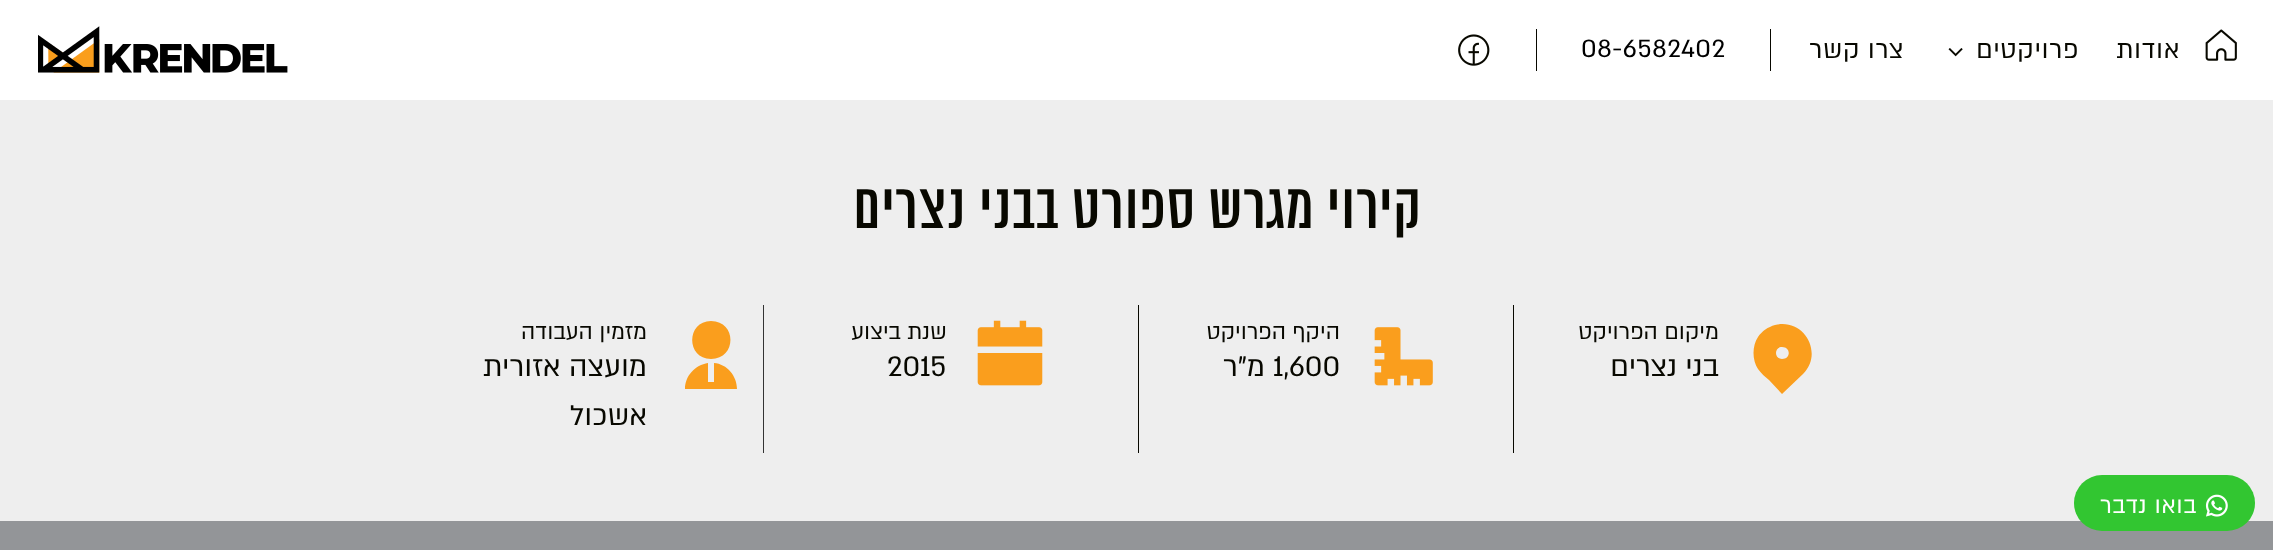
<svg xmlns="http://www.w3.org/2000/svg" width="2273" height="550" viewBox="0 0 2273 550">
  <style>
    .t1 { font: 28.75px 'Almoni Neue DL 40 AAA'; letter-spacing: 0.6px; direction: rtl; fill: #080800; }
    .t2 { font: 28.75px 'Almoni Neue DL 40 AAA'; letter-spacing: 0.6px; fill: #000; }
    .t3 { font: 26px 'Almoni Neue DL 40 AAA'; letter-spacing: 0.6px; direction: rtl; fill: #fff; }
    .t4 { font: 62.5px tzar; letter-spacing: 0.6px; direction: rtl; fill: #080800; }
    .t5 { font: 25px 'Almoni Neue DL 40 AAA'; direction: rtl; fill: #080800; }
    .t6 { font: 32.5px 'Almoni Neue DL 40 AAA'; direction: rtl; fill: #080800; }
    .t7 { font: 32.5px 'Almoni Neue DL 40 AAA'; fill: #080800; }
  </style>
  <rect width="100%" height="100%" fill="#fff"/>
  <image x="2205" y="29" width="32" height="32" href="images/1.png"/>
  <text x="2180" y="58" class="t1">אודות</text>
  <text x="2079" y="58" class="t1">פרויקטים</text>
  <image x="1948" y="48" width="15" height="9" href="images/2.png"/>
  <text x="1904" y="58" class="t1">צרו קשר</text>
  <rect x="1770" y="29" width="1" height="42" fill="#080800"/>
  <rect x="1536" y="29" width="1" height="42" fill="#080800"/>
  <text x="1581" y="57" class="t2">08-6582402</text>
  <image x="1458" y="34" width="32" height="32" href="images/3.png"/>
  <image x="38" y="26" width="250" height="47" href="images/4.png"/>
  <rect x="0" y="100" width="2273" height="421" fill="#eee"/>
  <rect x="0" y="521" width="2273" height="29" fill="#939598"/>
  <rect x="2074" y="475" width="181" height="56" rx="28" fill="#32c631"/>
  <image x="2205" y="494" width="23" height="23" href="images/5.png"/>
  <text x="2197" y="513" class="t3">בואו נדבר</text>
  <text x="1422" y="228" class="t4">קירוי מגרש ספורט בבני נצרים</text>
  <rect x="1513" y="305" width="1" height="148" fill="#080800"/>
  <path d="M1803 374L1782 394L1769 380C1765 377 1761 373 1758 369C1752 360 1752 346 1758 337C1762 331 1768 327 1775 325C1804 318 1824 353 1803 374ZM1782 359C1791 359 1791 347 1782 347C1774 347 1774 359 1782 359Z" fill="#fa9e1d"/>
  <text x="1719" y="339" class="t5">מיקום הפרויקט</text>
  <text x="1719" y="376" class="t6">בני נצרים</text>
  <rect x="1138" y="305" width="1" height="148" fill="#080800"/>
  <image x="1374" y="327" width="59" height="59" href="images/6.png"/>
  <text x="1340" y="339" class="t5">היקף הפרויקט</text>
  <text x="1273" y="376" class="t7">1,600</text>
  <text x="1265" y="376" class="t6">מ"ר</text>
  <rect x="763" y="305" width="1" height="148" fill="#333"/>
  <image x="977" y="320" width="66" height="66" href="images/7.png"/>
  <text x="947" y="339" class="t5">שנת ביצוע</text>
  <text x="887" y="376" class="t7">2015</text>
  <path d="M708 363V382H714V363C727 364 737 376 737 389H685C685 376 695 365 708 363ZM711 359C686 359 686 321 711 321C737 321 737 359 711 359Z" fill="#fa9e1d"/>
  <text x="647" y="339" class="t5">מזמין העבודה</text>
  <text x="647" y="376" class="t6">מועצה אזורית</text>
  <text x="647" y="425" class="t6">אשכול</text>
</svg>
